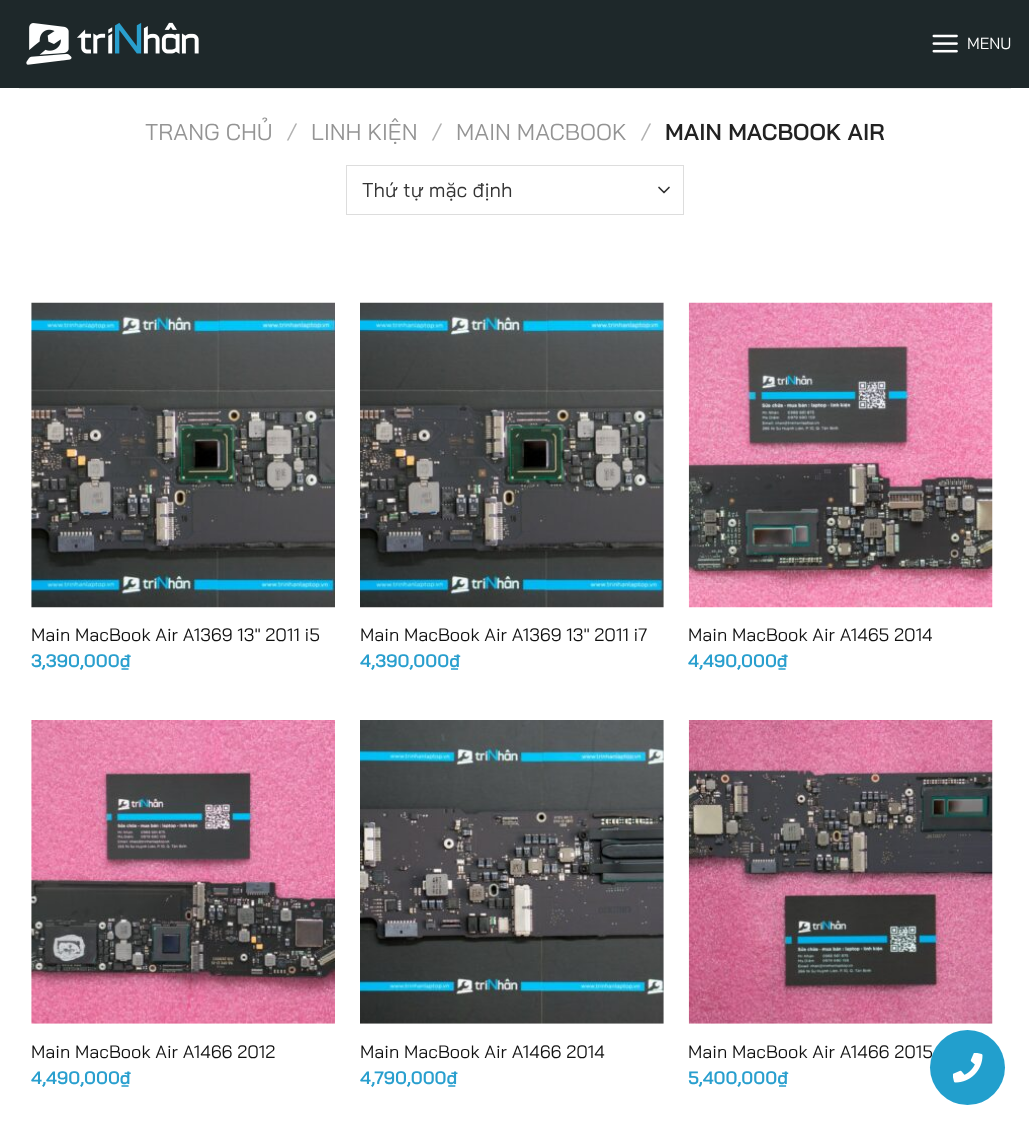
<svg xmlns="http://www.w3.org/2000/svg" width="1029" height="1129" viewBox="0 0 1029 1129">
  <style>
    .t1 { font: 16px Bai Jamjuree; fill: #fff; }
    .t2 { font: 23px Bai Jamjuree; fill: #949494; }
    .t3 { font: 23px Bai Jamjuree; fill: #b2b2b2; }
    .t4 { font: 600 23px Bai Jamjuree; fill: #222; }
    .t5 { font: 20px Bai Jamjuree; fill: #333; }
    .t6 { font: 18px Bai Jamjuree; fill: #111; }
    .t7 { font: 600 18px Bai Jamjuree; fill: #299fce; }
  </style>
  <rect width="100%" height="100%" fill="#fff"/>
  <rect x="0" y="0" width="1029" height="88" fill="#1e282a"/>
  <image x="26" y="22" width="173" height="43" href="images/1.png"/>
  <image x="932" y="34" width="26" height="19" href="images/2.png"/>
  <text x="967" y="49" class="t1">MENU</text>
  <rect x="19" y="88" width="992" height="1" fill="#e7e7e7"/>
  <text x="145" y="140" class="t2">TRANG CHỦ</text>
  <text x="286" y="140" class="t3">/</text>
  <text x="311" y="140" class="t2">LINH KIỆN</text>
  <text x="431" y="140" class="t3">/</text>
  <text x="456" y="140" class="t2">MAIN MACBOOK</text>
  <text x="640" y="140" class="t3">/</text>
  <text x="665" y="140" class="t4">MAIN MACBOOK AIR</text>
  <path d="M659 187.5L664 192.5L669 187.5" fill="none" stroke="#333" stroke-width="1.7" stroke-linecap="round" stroke-linejoin="round"/>
  <rect x="346.5" y="165.5" width="337" height="49" fill="none" stroke="#ddd"/>
  <text x="362" y="197" class="t5">Thứ tự mặc định</text>
  <image x="31" y="302" width="304" height="306" href="images/3.png"/>
  <text x="31" y="641" class="t6">Main MacBook Air A1369 13″ 2011 i5</text>
  <text x="31" y="667" class="t7">3,390,000₫</text>
  <image x="360" y="302" width="304" height="306" href="images/4.png"/>
  <text x="360" y="641" class="t6">Main MacBook Air A1369 13″ 2011 i7</text>
  <text x="360" y="667" class="t7">4,390,000₫</text>
  <image x="688" y="302" width="305" height="306" href="images/5.png"/>
  <text x="688" y="641" class="t6">Main MacBook Air A1465 2014</text>
  <text x="688" y="667" class="t7">4,490,000₫</text>
  <image x="31" y="720" width="304" height="304" href="images/6.png"/>
  <text x="31" y="1058" class="t6">Main MacBook Air A1466 2012</text>
  <text x="31" y="1084" class="t7">4,490,000₫</text>
  <image x="360" y="720" width="304" height="304" href="images/7.png"/>
  <text x="360" y="1058" class="t6">Main MacBook Air A1466 2014</text>
  <text x="360" y="1084" class="t7">4,790,000₫</text>
  <image x="688" y="720" width="305" height="304" href="images/8.png"/>
  <text x="688" y="1058" class="t6">Main MacBook Air A1466 2015</text>
  <text x="688" y="1084" class="t7">5,400,000₫</text>
  <circle cx="967.5" cy="1067.5" r="37.5" fill="#229fcd"/>
  <image x="953" y="1053" width="30" height="30" href="images/9.png"/>
</svg>
